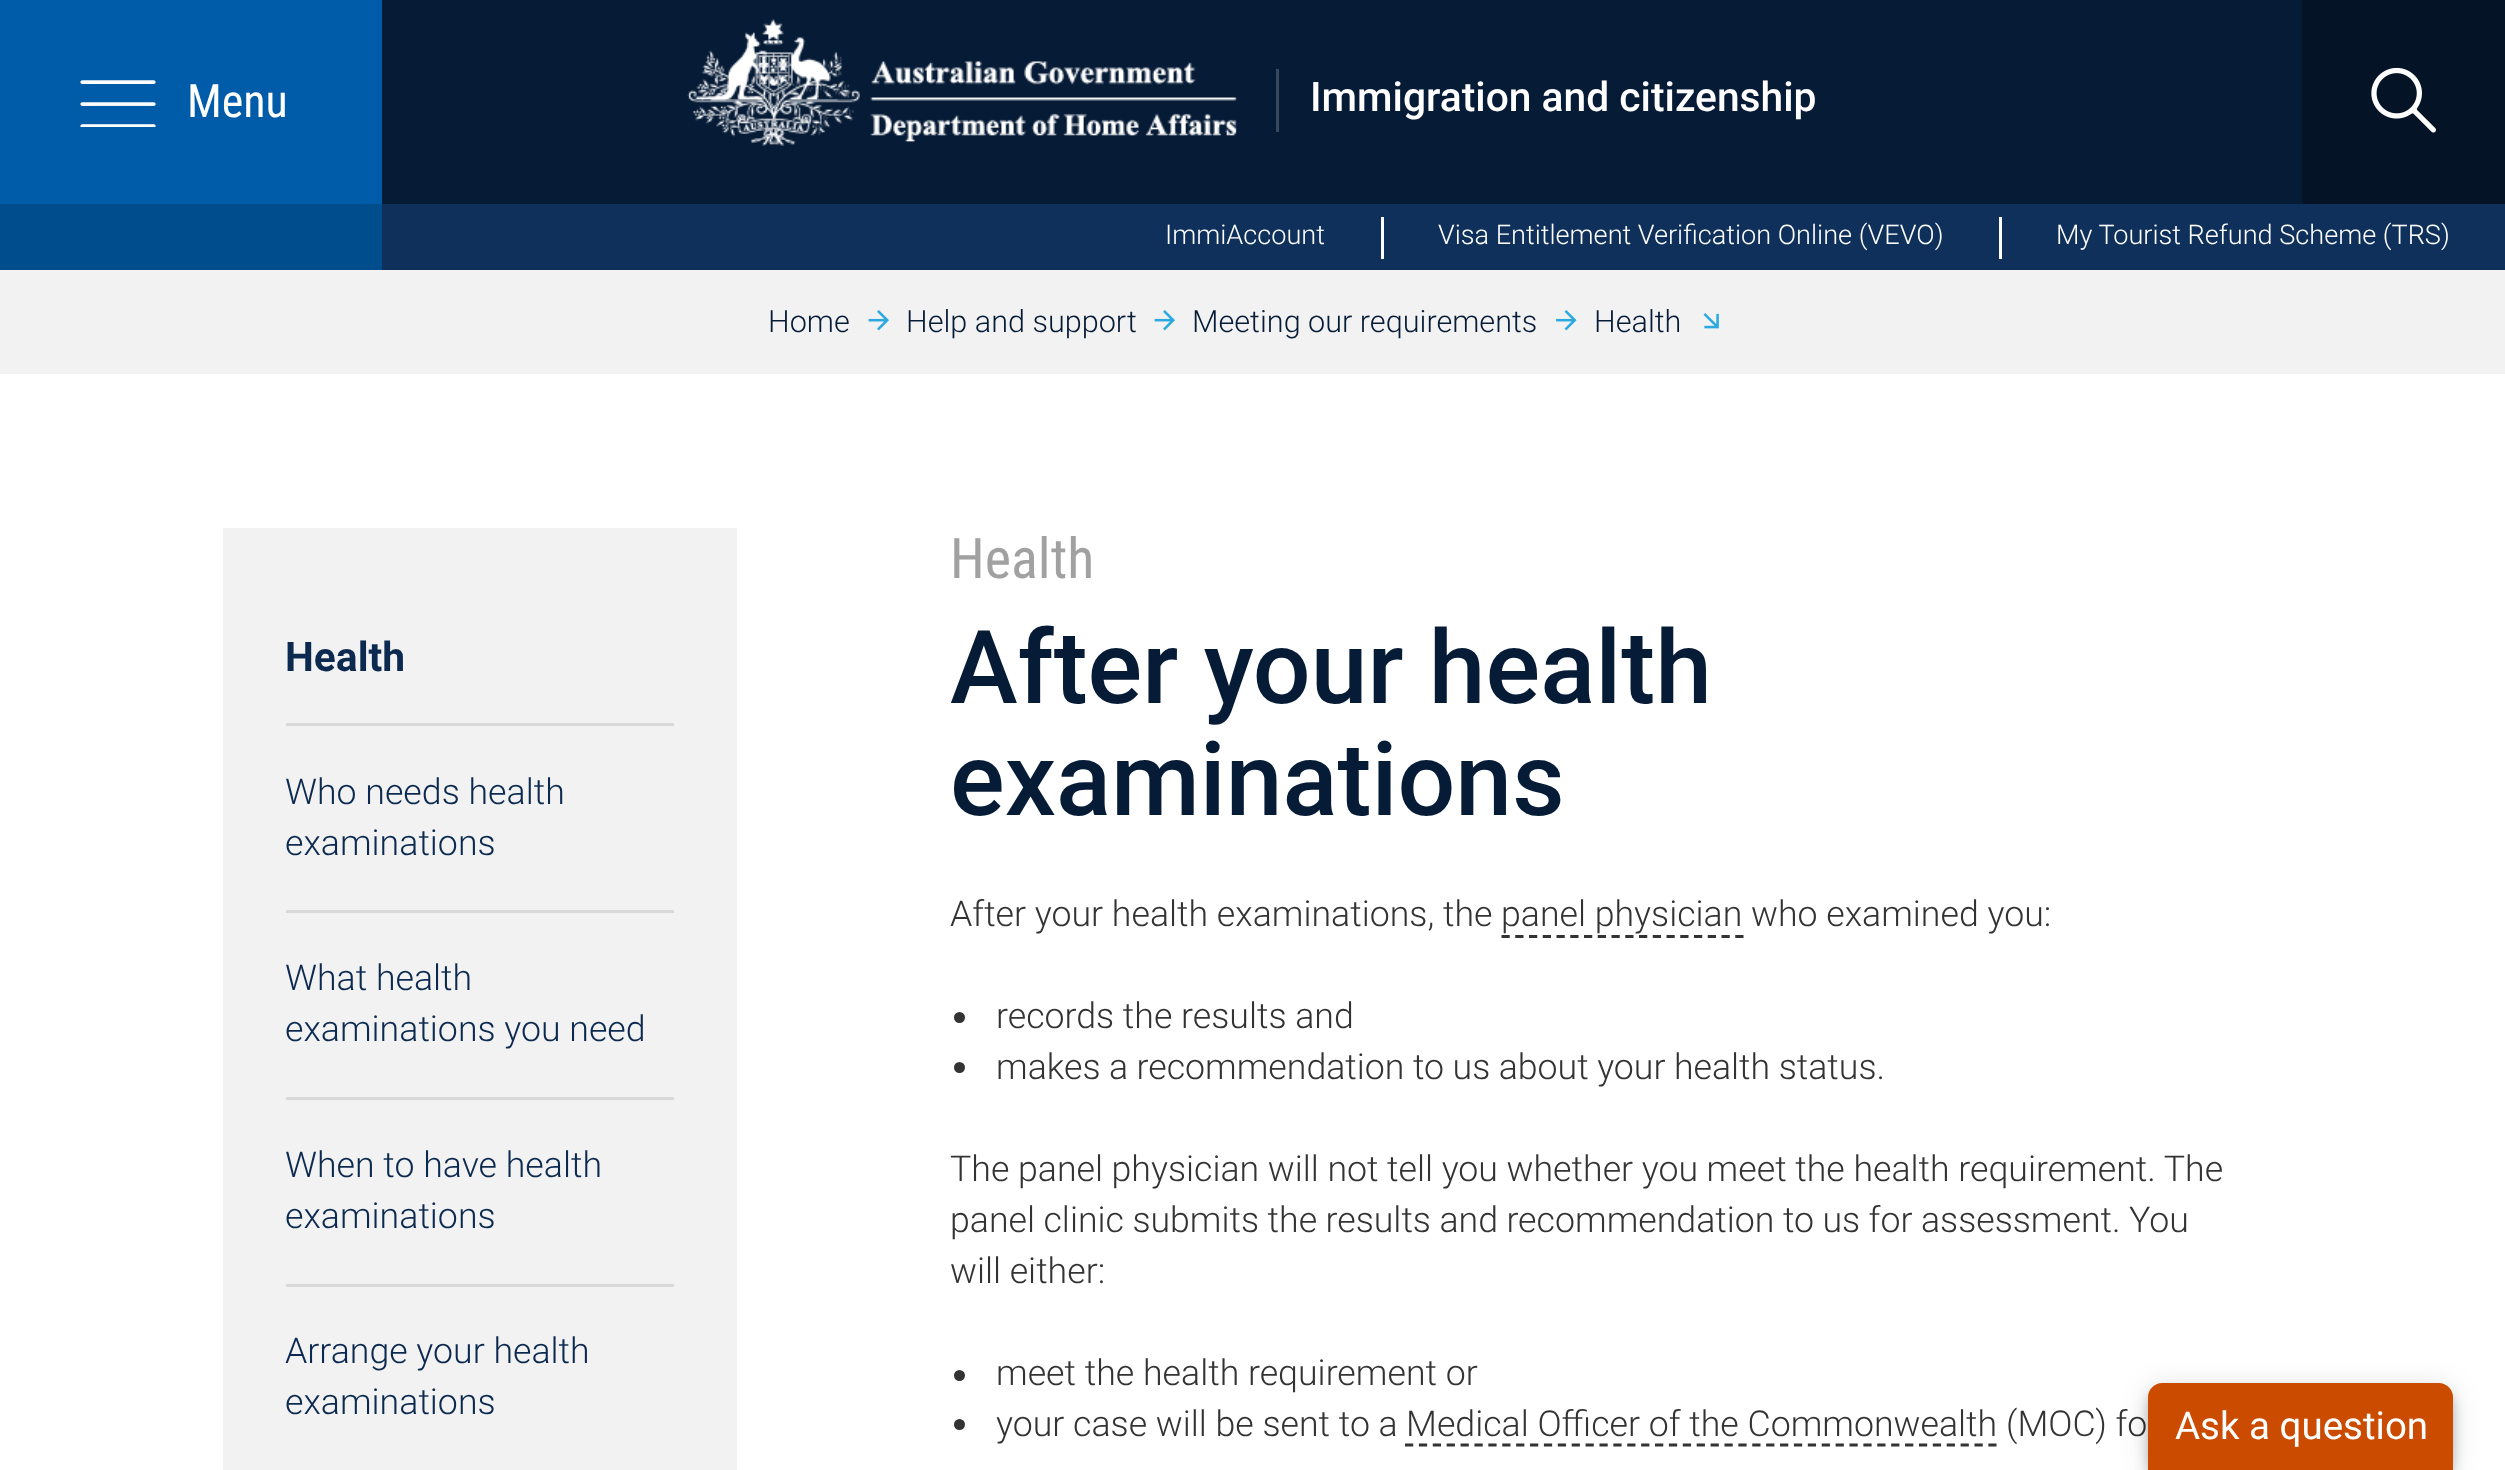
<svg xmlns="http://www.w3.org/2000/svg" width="2505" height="1470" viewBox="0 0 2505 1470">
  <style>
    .t1 { font: 46px Roboto Condensed; fill: #fff; }
    .t2 { font: 500 40.75px Roboto; fill: #fff; }
    .t3 { font: 300 27.1px Roboto; fill: #fff; }
    .t4 { font: 300 30.6px Roboto; fill: #061b36; }
    .t5 { font: bold 40.75px Roboto; fill: #0c2a50; }
    .t6 { font: 300 35.7px Roboto; fill: #0c2a50; }
    .t7 { font: 56px Roboto Condensed; fill: #a1a1a1; }
    .t8 { font: 500 102px Roboto; fill: #061b36; }
    .t9 { font: 300 35.7px Roboto; fill: #333; }
    .t10 { font: 38.5px Roboto; fill: #fff; }
  </style>
  <rect width="100%" height="100%" fill="#f2f2f2"/>
  <rect x="382" y="0" width="1920" height="204" fill="#061b36"/>
  <rect x="0" y="0" width="382" height="204" fill="#005ba8"/>
  <image x="80" y="80" width="76" height="47" href="images/1.png"/>
  <text x="187" y="117" class="t1">Menu</text>
  <image x="687" y="19" width="550" height="127" href="images/2.png"/>
  <rect x="1276" y="69" width="3" height="63" fill="#38495e"/>
  <text x="1310" y="111" class="t2">Immigration and citizenship</text>
  <rect x="2302" y="0" width="203" height="204" fill="#041326"/>
  <image x="2371" y="67" width="65" height="66" href="images/3.png"/>
  <rect x="382" y="204" width="2123" height="66" fill="#0e305a"/>
  <rect x="0" y="204" width="382" height="66" fill="#004d8e"/>
  <text x="1165" y="244" class="t3">ImmiAccount</text>
  <rect x="1381" y="217" width="3" height="42" fill="#fff"/>
  <text x="1438" y="244" class="t3">Visa Entitlement Verification Online (VEVO)</text>
  <rect x="1999" y="217" width="3" height="42" fill="#fff"/>
  <text x="2056" y="244" class="t3">My Tourist Refund Scheme (TRS)</text>
  <text x="768" y="332" class="t4">Home</text>
  <image x="868" y="310" width="21" height="21" href="images/4.png"/>
  <text x="906" y="332" class="t4">Help and support</text>
  <image x="1154" y="310" width="21" height="21" href="images/4.png"/>
  <text x="1192" y="332" class="t4">Meeting our requirements</text>
  <image x="1556" y="310" width="21" height="21" href="images/5.png"/>
  <text x="1594" y="332" class="t4">Health</text>
  <image x="1703" y="313" width="16" height="16" href="images/6.png"/>
  <rect x="0" y="374" width="2505" height="1096" fill="#fff"/>
  <rect x="223" y="528" width="514" height="942" fill="#f2f2f2"/>
  <rect x="286" y="723" width="388" height="3" fill="#d9d9d9"/>
  <text x="285" y="671" class="t5">Health</text>
  <rect x="286" y="910" width="388" height="3" fill="#d9d9d9"/>
  <text x="285" y="804" class="t6">Who needs health</text>
  <text x="285" y="855" class="t6">examinations</text>
  <rect x="286" y="1097" width="388" height="3" fill="#d9d9d9"/>
  <text x="285" y="990" class="t6">What health</text>
  <text x="285" y="1041" class="t6">examinations you need</text>
  <rect x="286" y="1284" width="388" height="3" fill="#d9d9d9"/>
  <text x="285" y="1177" class="t6">When to have health</text>
  <text x="285" y="1228" class="t6">examinations</text>
  <text x="285" y="1363" class="t6">Arrange your health</text>
  <text x="285" y="1414" class="t6">examinations</text>
  <text x="950" y="578" class="t7">Health</text>
  <text x="950" y="703" class="t8">After your health</text>
  <text x="950" y="815" class="t8">examinations</text>
  <text x="950" y="926" class="t9">After your health examinations, the</text>
  <text x="1501" y="926" class="t9">panel physician</text>
  <path d="M1501.5 936.5H1743.5" fill="none" stroke="#333" stroke-width="2.8" stroke-dasharray="8.25 5.5"/>
  <text x="1751" y="926" class="t9">who examined you:</text>
  <circle cx="959.5" cy="1017.5" r="5.5" fill="#333"/>
  <text x="996" y="1028" class="t9">records the results and</text>
  <circle cx="959.5" cy="1067.5" r="5.5" fill="#333"/>
  <text x="996" y="1079" word-spacing="-0.25" class="t9">makes a recommendation to us about your health status.</text>
  <text x="950" y="1181" word-spacing="-0.1" class="t9">The panel physician will not tell you whether you meet the health requirement. The</text>
  <text x="950" y="1232" word-spacing="-0.25" class="t9">panel clinic submits the results and recommendation to us for assessment. You</text>
  <text x="950" y="1283" class="t9">will either:</text>
  <circle cx="959.5" cy="1375.5" r="5.5" fill="#333"/>
  <text x="996" y="1385" class="t9">meet the health requirement or</text>
  <circle cx="959.5" cy="1424.5" r="5.5" fill="#333"/>
  <text x="996" y="1436" class="t9">your case will be sent to a</text>
  <text x="1406" y="1436" class="t9">Medical Officer of the Commonwealth</text>
  <path d="M1405 1445H1996.5" fill="none" stroke="#333" stroke-width="2.8" stroke-dasharray="8.25 5.64"/>
  <text x="2006" y="1436" class="t9">(MOC) fo</text>
  <rect x="2151" y="1392" width="299" height="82" rx="11" fill="#00000033" filter="blur(5.5px)"/>
  <rect x="2148" y="1386" width="305" height="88" rx="14" fill="#0000001f" filter="blur(14px)"/>
  <rect x="2148" y="1394" width="305" height="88" rx="14" fill="#00000024" filter="blur(7px)"/>
  <path d="M2162 1383H2439C2446.5 1383 2453 1389.5 2453 1397V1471H2148V1397C2148 1389.5 2154.5 1383 2162 1383Z" fill="#cb4b00"/>
  <text x="2175" y="1439" class="t10">Ask a question</text>
</svg>
